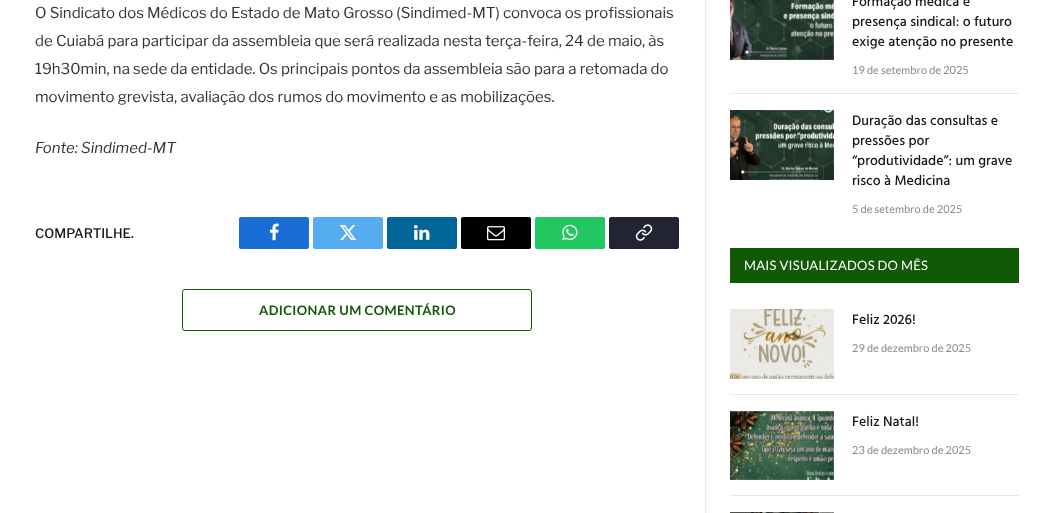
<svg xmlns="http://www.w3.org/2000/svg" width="1054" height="513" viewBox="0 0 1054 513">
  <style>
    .t1 { font: 15px Libre Franklin; fill: #333; }
    .t2 { font: italic 100 15px Libre Franklin; fill: #333; }
    .t3 { font: 500 13px Libre Franklin; fill: #161616; }
    .t4 { font: bold 13px Lato; letter-spacing: 0.4px; fill: #125906; }
    .t5 { font: 500 14px Hind; fill: #161616; }
    .t6 { font: 11px Lato; fill: #8a8a8a; }
    .t7 { font: 13px Lato; letter-spacing: 0.25px; fill: #fff; }
  </style>
  <rect width="100%" height="100%" fill="#fff"/>
  <text x="35" y="18" class="t1">O Sindicato dos Médicos do Estado de Mato Grosso (Sindimed-MT) convoca os profissionais</text>
  <text x="35" y="46" class="t1">de Cuiabá para participar da assembleia que será realizada nesta terça-feira, 24 de maio, às</text>
  <text x="35" y="74" class="t1">19h30min, na sede da entidade. Os principais pontos da assembleia são para a retomada do</text>
  <text x="35" y="102" class="t1">movimento grevista, avaliação dos rumos do movimento e as mobilizações.</text>
  <text x="35" y="153" class="t2">Fonte: Sindimed-MT</text>
  <text x="35" y="238" class="t3">COMPARTILHE.</text>
  <rect x="239" y="217" width="70" height="32" rx="2" fill="#1a6dd4"/>
  <image x="269" y="223" width="10" height="18" href="images/1.png"/>
  <rect x="313" y="217" width="70" height="32" rx="2" fill="#55acef"/>
  <image x="339" y="225" width="18" height="16" href="images/2.png"/>
  <rect x="387" y="217" width="70" height="32" rx="2" fill="#02669a"/>
  <image x="414" y="225" width="16" height="15" href="images/3.png"/>
  <rect x="461" y="217" width="70" height="32" rx="2" fill="#000"/>
  <image x="487" y="226" width="18" height="15" href="images/4.png"/>
  <rect x="535" y="217" width="70" height="32" rx="2" fill="#23c761"/>
  <image x="562" y="224" width="16" height="17" href="images/5.png"/>
  <rect x="609" y="217" width="70" height="32" rx="2" fill="#222433"/>
  <image x="635" y="224" width="18" height="17" href="images/6.png"/>
  <rect x="182.5" y="289.5" width="349" height="41" rx="2.5" fill="none" stroke="#125906"/>
  <text x="259" y="315" class="t4">ADICIONAR UM COMENTÁRIO</text>
  <rect x="705" y="0" width="1" height="513" fill="#e8e8e8"/>
  <image x="730" y="0" width="104" height="60" href="images/7.png"/>
  <text x="852" y="6" class="t5">Formação médica e</text>
  <text x="852" y="26" class="t5">presença sindical: o futuro</text>
  <text x="852" y="46" class="t5">exige atenção no presente</text>
  <text x="852" y="74" class="t6">19 de setembro de 2025</text>
  <rect x="730" y="93" width="289" height="1" fill="#e8e8e8"/>
  <image x="730" y="110" width="104" height="70" href="images/8.png"/>
  <text x="852" y="125" class="t5">Duração das consultas e</text>
  <text x="852" y="145" class="t5">pressões por</text>
  <text x="852" y="165" class="t5">“produtividade”: um grave</text>
  <text x="852" y="185" class="t5">risco à Medicina</text>
  <text x="852" y="213" class="t6">5 de setembro de 2025</text>
  <rect x="730" y="248" width="289" height="35" fill="#125906"/>
  <text x="744" y="270" class="t7">MAIS VISUALIZADOS DO MÊS</text>
  <image x="730" y="309" width="104" height="70" href="images/9.png"/>
  <text x="852" y="324" class="t5">Feliz 2026!</text>
  <text x="852" y="352" class="t6">29 de dezembro de 2025</text>
  <rect x="730" y="394" width="289" height="1" fill="#e8e8e8"/>
  <image x="730" y="411" width="104" height="69" href="images/10.png"/>
  <text x="852" y="426" class="t5">Feliz Natal!</text>
  <text x="852" y="454" class="t6">23 de dezembro de 2025</text>
  <rect x="730" y="495" width="289" height="1" fill="#e8e8e8"/>
  <image x="730" y="512" width="104" height="1" href="images/11.png"/>
</svg>
